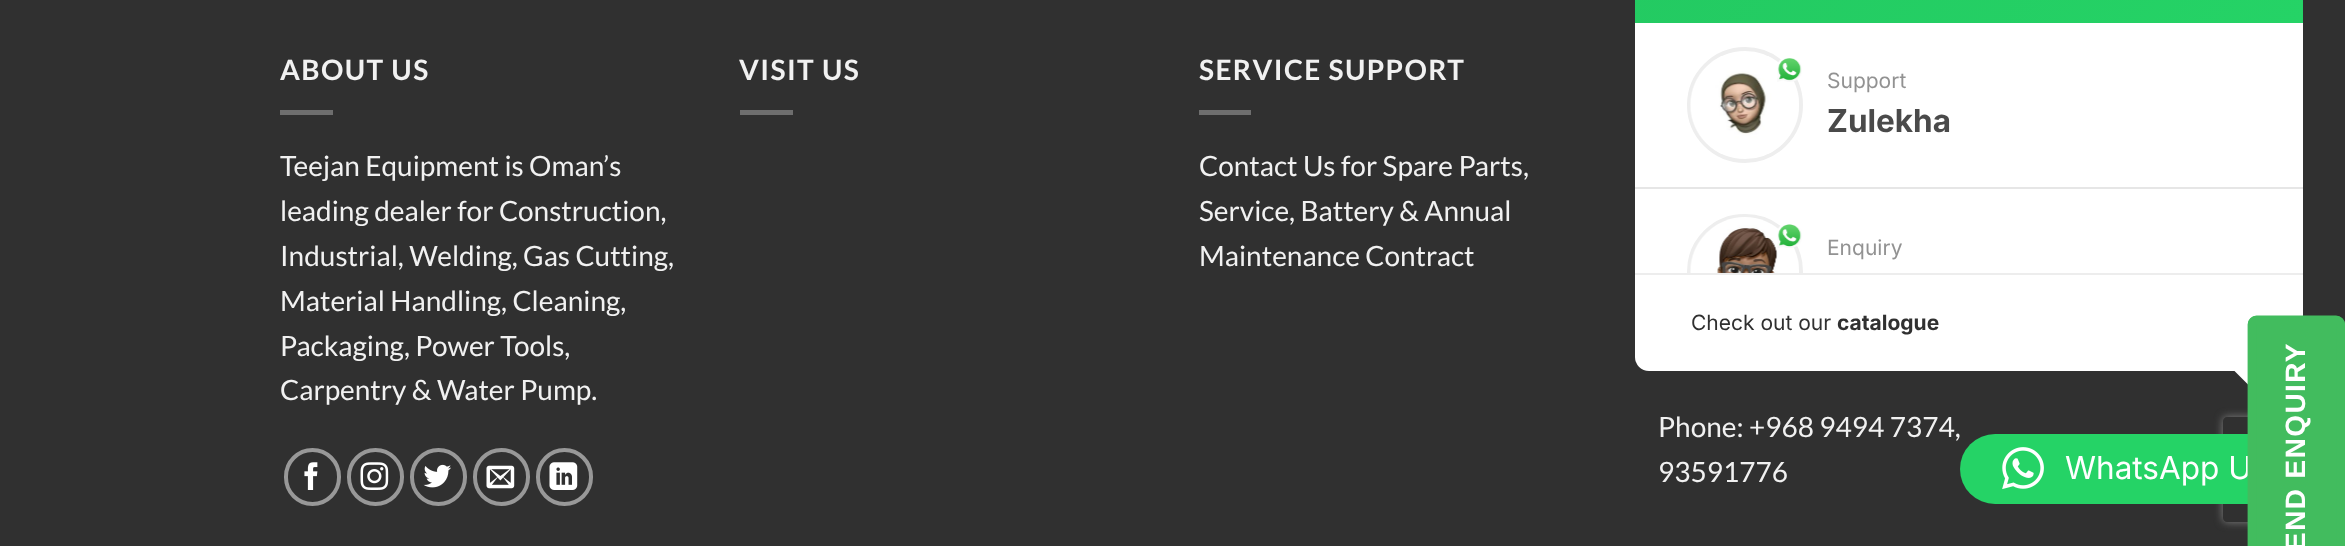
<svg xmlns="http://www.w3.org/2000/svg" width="2345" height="546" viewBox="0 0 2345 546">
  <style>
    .t1 { font: bold 28px Lato; letter-spacing: 1.4px; fill: #f1f1f1; }
    .t2 { font: 28px Lato; fill: #f1f1f1; }
    .t3 { font: 21px Inter; fill: #929292; }
    .t4 { font: bold 31.5px Inter; fill: #4a4a4a; }
    .t5 { font: 21px Inter; fill: #303030; }
    .t6 { font: bold 21px Inter; fill: #303030; }
    .t7 { font: 31.5px Inter; fill: #fff; }
    .t8 { font: bold 28px Liberation Sans; letter-spacing: 1.4px; fill: #fff; }
  </style>
  <defs>
    <linearGradient id="g1" gradientUnits="userSpaceOnUse" x1="2185" y1="140" x2="1752" y2="-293"><stop offset="0" stop-color="#25d366"/><stop offset="1" stop-color="#23c861"/></linearGradient>
    <clipPath id="clip1"><rect x="1635" y="23" width="668" height="250"/></clipPath>
    <clipPath id="clip2"><path d="M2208 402H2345V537H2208ZM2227 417H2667C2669 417 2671 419 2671 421V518C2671 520 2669 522 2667 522H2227C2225 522 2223 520 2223 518V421C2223 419 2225 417 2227 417Z" clip-rule="evenodd"/></clipPath>
  </defs>
  <rect width="100%" height="100%" fill="#303030"/>
  <text x="280" y="80" class="t1">ABOUT US</text>
  <rect x="280" y="110" width="53" height="5" fill="#6e6e6e"/>
  <text x="280" y="176" class="t2">Teejan Equipment is Oman’s</text>
  <text x="280" y="221" class="t2">leading dealer for Construction,</text>
  <text x="280" y="266" class="t2">Industrial, Welding, Gas Cutting,</text>
  <text x="280" y="311" class="t2">Material Handling, Cleaning,</text>
  <text x="280" y="356" class="t2">Packaging, Power Tools,</text>
  <text x="280" y="400" class="t2">Carpentry &amp; Water Pump.</text>
  <rect x="286" y="450" width="53" height="54" rx="26.5" fill="none" stroke="#989898" stroke-width="4"/>
  <image x="304" y="462" width="14" height="28" href="images/1.png"/>
  <rect x="349" y="450" width="53" height="54" rx="26.5" fill="none" stroke="#989898" stroke-width="4"/>
  <image x="360" y="462" width="29" height="28" href="images/2.png"/>
  <rect x="412" y="450" width="53" height="54" rx="26.5" fill="none" stroke="#989898" stroke-width="4"/>
  <image x="423" y="464" width="28" height="24" href="images/3.png"/>
  <rect x="475" y="450" width="53" height="54" rx="26.5" fill="none" stroke="#989898" stroke-width="4"/>
  <image x="486" y="465" width="29" height="24" href="images/4.png"/>
  <rect x="538" y="450" width="53" height="54" rx="26.5" fill="none" stroke="#989898" stroke-width="4"/>
  <image x="549" y="462" width="29" height="28" href="images/5.png"/>
  <text x="739" y="80" class="t1">VISIT US</text>
  <rect x="740" y="110" width="53" height="5" fill="#6e6e6e"/>
  <text x="1199" y="80" class="t1">SERVICE SUPPORT</text>
  <rect x="1199" y="110" width="52" height="5" fill="#6e6e6e"/>
  <text x="1199" y="176" class="t2">Contact Us for Spare Parts,</text>
  <text x="1199" y="221" class="t2">Service, Battery &amp; Annual</text>
  <text x="1199" y="266" class="t2">Maintenance Contract</text>
  <text x="1658" y="437" class="t2">Phone: +968 9494 7374,</text>
  <text x="1658" y="482" class="t2">93591776</text>
  <rect x="1635" y="-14" width="668" height="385" rx="14" fill="#fff"/>
  <rect x="1635" y="0" width="668" height="23" fill="url(#g1)"/>
  <circle cx="1745" cy="105" r="56" fill="none" stroke="#eee" stroke-width="4"/>
  <image x="1690" y="56" width="109" height="98" href="images/6.png"/>
  <image x="1777" y="58" width="25" height="24" href="images/7.png"/>
  <text x="1827" y="88" class="t3">Support</text>
  <text x="1827" y="132" class="t4">Zulekha</text>
  <rect x="1635" y="187" width="668" height="2" fill="#e6e6e6"/>
  <g clip-path="url(#clip1)">
    <rect x="1689" y="216" width="112" height="111" rx="55.5" fill="none" stroke="#eee" stroke-width="4"/>
  </g>
  <image x="1690" y="217" width="109" height="56" href="images/8.png"/>
  <image x="1777" y="224" width="25" height="24" href="images/9.png"/>
  <text x="1827" y="255" class="t3">Enquiry</text>
  <rect x="1635" y="273" width="668" height="2" fill="#00000012"/>
  <text x="1691" y="330" class="t5">Check out our</text>
  <text x="1837" y="330" class="t6">catalogue</text>
  <path d="M2249.5 354L2265.5 370L2249.5 386L2233.5 370Z" fill="#fff"/>
  <g clip-path="url(#clip2)">
    <rect x="2223" y="417" width="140" height="105" rx="4" fill="#808080" filter="blur(4.5px)"/>
  </g>
  <rect x="1960" y="434" width="350" height="70" rx="35" fill="#25d366"/>
  <image x="2002" y="447" width="42" height="43" href="images/10.png"/>
  <text x="2065" y="479" class="t7">WhatsApp U</text>
  <path d="M2248 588V324C2248 320 2252 316 2256 316H2336C2341 316 2345 320 2345 324V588C2345 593 2341 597 2336 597H2256C2252 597 2248 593 2248 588Z" fill="#42bc5e"/>
  <path d="M2252 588.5V324.5C2252 322 2254 320 2256.5 320H2336C2338.5 320 2340.5 322 2340.5 324.5V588.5C2340.5 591 2338.5 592.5 2336 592.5H2256.5C2254 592.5 2252 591 2252 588.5Z" fill="none" stroke="#42bc5e" stroke-width="8.8"/>
  <text x="2305" y="571" transform="rotate(-90 2305 571)" class="t8">SEND ENQUIRY</text>
</svg>
